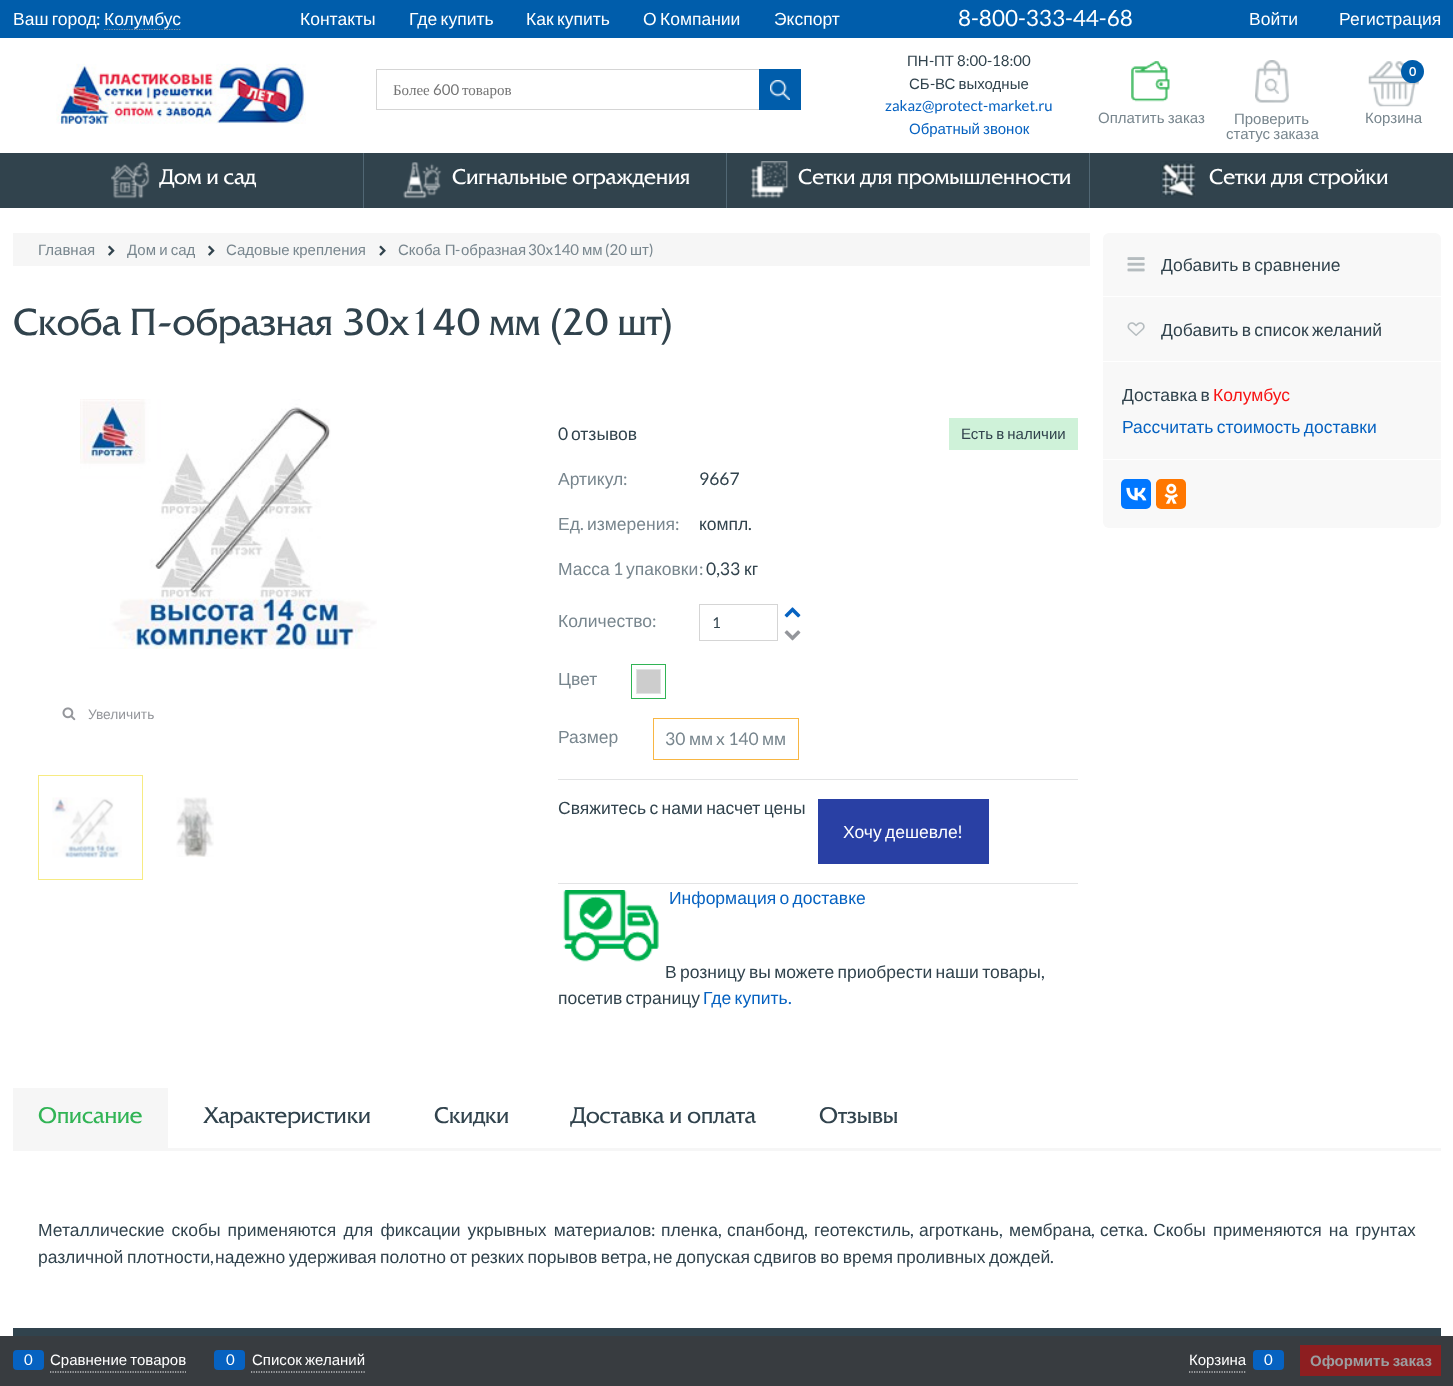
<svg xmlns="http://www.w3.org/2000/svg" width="1453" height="1386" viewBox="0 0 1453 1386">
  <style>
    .t1 { font: 17.5px Liberation Sans; fill: #fff; }
    .t2 { font: 17.5px Lato; fill: #fff; }
    .t3 { font: 22.5px Lato; fill: #fff; }
    .t4 { font: 15px Liberation Serif; fill: #757575; }
    .t5 { font: 15px Lato; fill: #757575; }
    .t6 { font: 15px Liberation Sans; fill: #31434d; }
    .t7 { font: 15px Lato; fill: #31434d; }
    .t8 { font: 15px Lato; fill: #0662c1; }
    .t9 { font: 15px Liberation Sans; fill: #0662c1; }
    .t10 { font: bold 12px Lato; fill: #fff; }
    .t11 { font: 15px Liberation Sans; fill: #78868e; }
    .t12 { font: 21.25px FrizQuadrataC; fill: #fff; }
    .t13 { font: 15px Lato; fill: #78868e; }
    .t14 { font: 37.5px FrizQuadrataC; fill: #31434d; }
    .t15 { font: 13.75px Liberation Sans; fill: #94969b; }
    .t16 { font: 17.5px Lato; fill: #31434d; }
    .t17 { font: 17.5px Liberation Sans; fill: #31434d; }
    .t18 { font: 17.5px Liberation Sans; fill: #78868e; }
    .t19 { font: 17.5px Lato; fill: #78868e; }
    .t20 { font: 17.5px Liberation Sans; fill: #0662c1; }
    .t21 { font: 17.5px Lato; fill: #0662c1; }
    .t22 { font: 17.5px Liberation Sans; fill: #f71414; }
    .t23 { font: 22.5px FrizQuadrataC; fill: #31b455; }
    .t24 { font: 22.5px FrizQuadrataC; fill: #31434d; }
    .t25 { font: 15px Lato; fill: #fff; }
    .t26 { font: 15px Liberation Sans; fill: #fff; }
    .t27 { font: bold 15px Liberation Sans; fill: #9c9ea0; }
  </style>
  <rect width="100%" height="100%" fill="#fff"/>
  <rect x="0" y="0" width="1453" height="38" fill="#005dab"/>
  <text x="13" y="25" word-spacing="-1.5" class="t1">Ваш город</text>
  <text x="96" y="25" class="t2">:</text>
  <path d="M104 29.5H181" fill="none" stroke="#94969b" stroke-width="1.2" stroke-dasharray="1.25 1.25"/>
  <text x="104" y="25" class="t1">Колумбус</text>
  <text x="300" y="25" class="t1">Контакты</text>
  <text x="409" y="25" word-spacing="-1.5" class="t1">Где купить</text>
  <text x="526" y="25" word-spacing="-1.5" class="t1">Как купить</text>
  <text x="643" y="25" word-spacing="-1.5" class="t1">О Компании</text>
  <text x="774" y="25" class="t1">Экспорт</text>
  <text x="958" y="26" class="t3">8-800-333-44-68</text>
  <text x="1249" y="25" class="t1">Войти</text>
  <text x="1339" y="25" class="t1">Регистрация</text>
  <image x="56" y="63" width="250" height="61" href="images/1.png"/>
  <rect x="376" y="69" width="383" height="1" fill="#d5d5d5"/>
  <rect x="376" y="109" width="383" height="1" fill="#d5d5d5"/>
  <rect x="376" y="69" width="1" height="41" fill="#d5d5d5"/>
  <text x="393" y="95" class="t4">Более</text>
  <text x="433" y="95" class="t5">600</text>
  <text x="462" y="95" class="t4">товаров</text>
  <rect x="759" y="69" width="42" height="41" fill="#005dab"/>
  <image x="770" y="80" width="20" height="20" href="images/2.png"/>
  <text x="907" y="66" class="t6">ПН</text>
  <text x="929" y="66" class="t7">-</text>
  <text x="934" y="66" class="t6">ПТ</text>
  <text x="957" y="66" class="t7">8:00-18:00</text>
  <text x="909" y="89" class="t6">СБ</text>
  <text x="930" y="89" class="t7">-</text>
  <text x="935" y="89" word-spacing="-1" class="t6">ВС выходные</text>
  <text x="885" y="111" class="t8">zakaz@protect-market.ru</text>
  <text x="909" y="134" word-spacing="-1" class="t9">Обратный звонок</text>
  <image x="1368" y="61" width="51" height="46" href="images/3.png"/>
  <circle cx="1412.5" cy="71.5" r="11.5" fill="#005dab"/>
  <text x="1409" y="76" class="t10">0</text>
  <text x="1365" y="123" class="t11">Корзина</text>
  <image x="1131" y="61" width="39" height="41" href="images/4.png"/>
  <text x="1098" y="123" word-spacing="-1" class="t11">Оплатить заказ</text>
  <image x="1255" y="60" width="34" height="43" href="images/5.png"/>
  <text x="1234" y="124" class="t11">Проверить</text>
  <text x="1226" y="139" word-spacing="-1" class="t11">статус заказа</text>
  <rect x="0" y="153" width="1453" height="55" fill="#31434d"/>
  <rect x="363" y="153" width="1" height="55" fill="#516774"/>
  <image x="111" y="162" width="39" height="37" href="images/6.png"/>
  <text x="160" y="184" class="t12">Дом и сад</text>
  <rect x="726" y="153" width="1" height="55" fill="#516774"/>
  <image x="403" y="162" width="39" height="37" href="images/7.png"/>
  <text x="452" y="184" class="t12">Сигнальные ограждения</text>
  <rect x="1089" y="153" width="1" height="55" fill="#516774"/>
  <image x="751" y="161" width="38" height="38" href="images/8.png"/>
  <text x="798" y="184" class="t12">Сетки для промышленности</text>
  <image x="1160" y="161" width="36" height="37" href="images/9.png"/>
  <text x="1209" y="184" class="t12">Сетки для стройки</text>
  <rect x="13" y="233" width="1077" height="33" fill="#f6f6f6"/>
  <text x="38" y="255" class="t11">Главная</text>
  <image x="108" y="245" width="7" height="11" href="images/10.png"/>
  <text x="127" y="255" word-spacing="-1" class="t11">Дом и сад</text>
  <image x="208" y="245" width="7" height="11" href="images/10.png"/>
  <text x="226" y="255" word-spacing="-1" class="t11">Садовые крепления</text>
  <image x="379" y="245" width="7" height="11" href="images/11.png"/>
  <text x="398" y="255" class="t11">Скоба П</text>
  <text x="455" y="255" class="t13">-</text>
  <text x="461" y="255" class="t11">образная</text>
  <text x="528" y="255" class="t13">30x140</text>
  <text x="582" y="255" class="t11">мм</text>
  <text x="605" y="255" class="t13">(20</text>
  <text x="630" y="255" class="t11">шт</text>
  <text x="649" y="255" class="t13">)</text>
  <text x="13" y="335" class="t14">Скоба П-образная 30x140 мм (20 шт)</text>
  <image x="80" y="399" width="297" height="250" href="images/12.png"/>
  <image x="62" y="707" width="14" height="14" href="images/13.png"/>
  <text x="88" y="719" class="t15">Увеличить</text>
  <rect x="38.5" y="775.5" width="104" height="104" fill="none" stroke="#f7eb83"/>
  <image x="52" y="797" width="70" height="61" href="images/14.png"/>
  <image x="176" y="797" width="38" height="60" href="images/15.png"/>
  <text x="558" y="440" class="t16">0</text>
  <text x="571" y="440" class="t17">отзывов</text>
  <rect x="949" y="418" width="129" height="32" fill="#cff2d9"/>
  <text x="961" y="439" word-spacing="-1" class="t6">Есть в наличии</text>
  <text x="558" y="485" class="t18">Артикул</text>
  <text x="623" y="485" class="t19">:</text>
  <text x="699" y="485" class="t16">9667</text>
  <text x="558" y="530" class="t18">Ед</text>
  <text x="580" y="530" class="t19">.</text>
  <text x="587" y="530" class="t18">измерения</text>
  <text x="675" y="530" class="t19">:</text>
  <text x="699" y="530" class="t17">компл</text>
  <text x="748" y="530" class="t16">.</text>
  <text x="558" y="575" class="t18">Масса</text>
  <text x="613" y="575" class="t19">1</text>
  <text x="626" y="575" class="t18">упаковки</text>
  <text x="699" y="575" class="t19">:</text>
  <text x="706" y="575" class="t16">0,33</text>
  <text x="744" y="575" class="t17">кг</text>
  <text x="558" y="627" class="t18">Количество</text>
  <text x="652" y="627" class="t19">:</text>
  <rect x="699.5" y="604.5" width="78" height="36" fill="none" stroke="#d5d5d5"/>
  <text x="712" y="628" class="t7">1</text>
  <image x="784" y="607" width="17" height="11" href="images/16.png"/>
  <image x="784" y="630" width="17" height="11" href="images/17.png"/>
  <text x="558" y="685" class="t18">Цвет</text>
  <rect x="631.5" y="664.5" width="34" height="34" fill="none" stroke="#31b455"/>
  <rect x="636.5" y="669.5" width="24" height="24" fill="#cdcdcd" stroke="#e2e3e4"/>
  <text x="558" y="743" class="t18">Размер</text>
  <rect x="653.5" y="718.5" width="145" height="41" fill="none" stroke="#f8b643"/>
  <text x="665" y="745" class="t19">30</text>
  <text x="689" y="745" class="t18">мм</text>
  <text x="716" y="745" class="t19">x 140</text>
  <text x="762" y="745" class="t18">мм</text>
  <rect x="558" y="779" width="520" height="1" fill="#e2e3e4"/>
  <rect x="558" y="883" width="520" height="1" fill="#e2e3e4"/>
  <text x="558" y="814" word-spacing="-1.5" class="t17">Свяжитесь с нами насчет цены</text>
  <rect x="818" y="799" width="171" height="65" fill="#2940a4"/>
  <text x="843" y="838" word-spacing="-1.5" class="t1">Хочу дешевле</text>
  <text x="957" y="838" class="t2">!</text>
  <image x="563" y="890" width="96" height="72" href="images/18.png"/>
  <text x="669" y="904" word-spacing="-1.5" class="t20">Информация о доставке</text>
  <text x="665" y="978" word-spacing="-1.5" class="t17">В розницу вы можете приобрести наши товары</text>
  <text x="1041" y="978" class="t16">,</text>
  <text x="558" y="1004" word-spacing="-1.5" class="t17">посетив страницу</text>
  <text x="703" y="1004" word-spacing="-1.5" class="t20">Где купить</text>
  <text x="788" y="1004" class="t21">.</text>
  <rect x="1103" y="233" width="338" height="295" rx="6" fill="#f8f8f8"/>
  <rect x="1103" y="296" width="338" height="1" fill="#fff"/>
  <image x="1127" y="257" width="18" height="15" href="images/19.png"/>
  <text x="1161" y="271" word-spacing="-1.5" class="t17">Добавить в сравнение</text>
  <rect x="1103" y="361" width="338" height="1" fill="#fff"/>
  <image x="1127" y="322" width="18" height="14" href="images/20.png"/>
  <text x="1161" y="336" word-spacing="-1.5" class="t17">Добавить в список желаний</text>
  <rect x="1103" y="459" width="338" height="1" fill="#fff"/>
  <text x="1122" y="401" word-spacing="-1.5" class="t17">Доставка в</text>
  <text x="1213" y="401" class="t22">Колумбус</text>
  <text x="1122" y="433" word-spacing="-1.5" class="t20">Рассчитать стоимость доставки</text>
  <rect x="1121" y="479" width="30" height="30" rx="5" fill="#07f"/>
  <image x="1126" y="487" width="21" height="14" href="images/21.png"/>
  <rect x="1156" y="479" width="30" height="30" rx="5" fill="#f70"/>
  <image x="1164" y="483" width="14" height="21" href="images/22.png"/>
  <rect x="13" y="1148" width="1428" height="3" fill="#f6f6f6"/>
  <rect x="13" y="1088" width="155" height="60" fill="#f6f6f6"/>
  <text x="38" y="1123" class="t23">Описание</text>
  <text x="204" y="1123" class="t24">Характеристики</text>
  <text x="434" y="1123" class="t24">Скидки</text>
  <text x="571" y="1123" class="t24">Доставка и оплата</text>
  <text x="819" y="1123" class="t24">Отзывы</text>
  <text x="38" y="1236" word-spacing="2.25" class="t17">Металлические скобы применяются для фиксации укрывных материалов</text>
  <text x="651" y="1236" class="t16">:</text>
  <text x="661" y="1236" class="t17">пленка</text>
  <text x="718" y="1236" class="t16">,</text>
  <text x="727" y="1236" class="t17">спанбонд</text>
  <text x="804" y="1236" class="t16">,</text>
  <text x="814" y="1236" class="t17">геотекстиль</text>
  <text x="910" y="1236" class="t16">,</text>
  <text x="919" y="1236" class="t17">агроткань</text>
  <text x="999" y="1236" class="t16">,</text>
  <text x="1009" y="1236" class="t17">мембрана</text>
  <text x="1091" y="1236" class="t16">,</text>
  <text x="1100" y="1236" class="t17">сетка</text>
  <text x="1144" y="1236" class="t16">.</text>
  <text x="1153" y="1236" word-spacing="2.25" class="t17">Скобы применяются на грунтах</text>
  <text x="38" y="1263" word-spacing="-1.25" class="t17">различной плотности</text>
  <text x="210" y="1263" class="t16">,</text>
  <text x="215" y="1263" word-spacing="-1.25" class="t17">надежно удерживая полотно от резких порывов ветра</text>
  <text x="647" y="1263" class="t16">,</text>
  <text x="653" y="1263" word-spacing="-1.25" class="t17">не допуская сдвигов во время проливных дождей</text>
  <text x="1050" y="1263" class="t16">.</text>
  <rect x="13" y="1328" width="1428" height="8" fill="#31434d"/>
  <rect x="0" y="1336" width="1453" height="50" fill="#383c40"/>
  <path d="M50 1372H186" fill="none" stroke="#fff" stroke-width="1.2" stroke-dasharray="1.25 1.25"/>
  <rect x="13" y="1350" width="31" height="20" rx="4" fill="#0662c1"/>
  <text x="24" y="1365" class="t25">0</text>
  <text x="50" y="1365" word-spacing="-1" class="t26">Сравнение товаров</text>
  <path d="M251 1372H365" fill="none" stroke="#fff" stroke-width="1.2" stroke-dasharray="1.25 1.25"/>
  <rect x="214" y="1350" width="31" height="20" rx="4" fill="#0662c1"/>
  <text x="226" y="1365" class="t25">0</text>
  <text x="252" y="1365" word-spacing="-1" class="t26">Список желаний</text>
  <path d="M1189 1372H1246" fill="none" stroke="#fff" stroke-width="1.2" stroke-dasharray="1.25 1.25"/>
  <text x="1189" y="1365" class="t26">Корзина</text>
  <rect x="1253" y="1350" width="31" height="20" rx="4" fill="#0662c1"/>
  <text x="1264" y="1365" class="t25">0</text>
  <rect x="1300" y="1345" width="141" height="31" fill="#8d1e20"/>
  <text x="1310" y="1366" word-spacing="-1" class="t27">Оформить заказ</text>
</svg>
